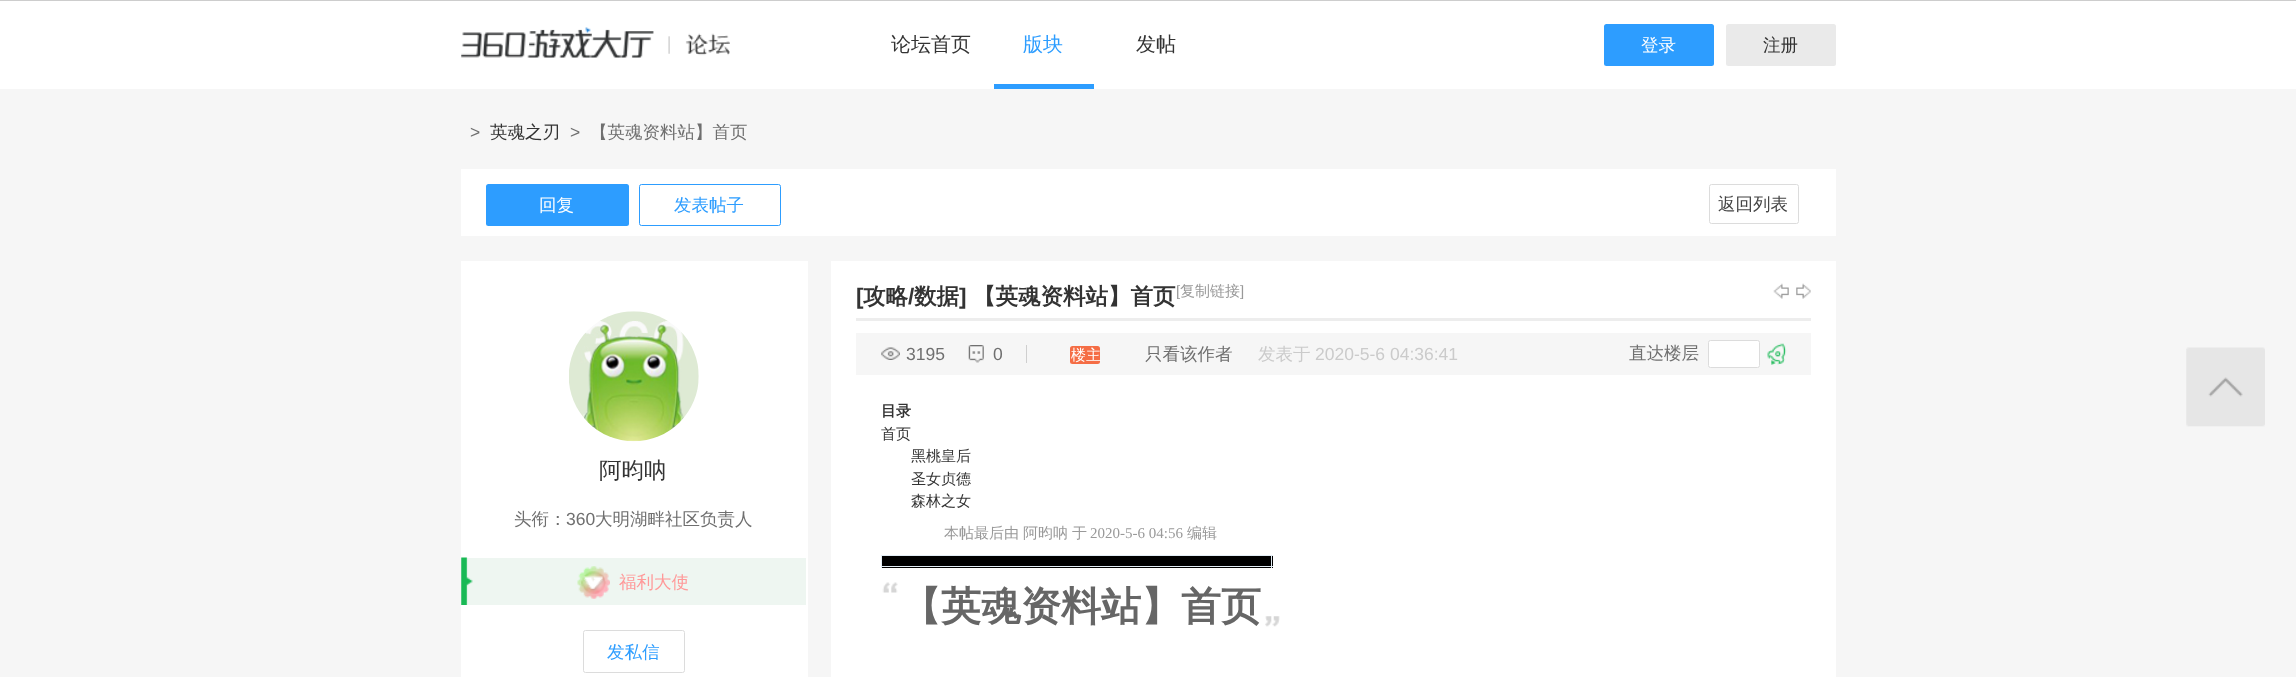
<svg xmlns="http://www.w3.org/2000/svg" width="2296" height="677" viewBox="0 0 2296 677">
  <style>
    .t1 { font: 500 20px WenQuanYi Zen Hei; fill: #333; }
    .t2 { font: 500 20px WenQuanYi Zen Hei; fill: #2d9dff; }
    .t3 { font: 500 17.5px WenQuanYi Zen Hei; fill: #fff; }
    .t4 { font: 500 17.5px WenQuanYi Zen Hei; fill: #333; }
    .t5 { font: 17.5px Liberation Sans; fill: #6f6f6f; }
    .t6 { font: 500 17.5px WenQuanYi Zen Hei; fill: #6f6f6f; }
    .t7 { font: 500 17.5px WenQuanYi Zen Hei; fill: #2d9dff; }
    .t8 { font: 500 17.5px WenQuanYi Zen Hei; fill: #444; }
    .t9 { font: 500 22.5px WenQuanYi Zen Hei; fill: #333; }
    .t10 { font: 500 17.5px WenQuanYi Zen Hei; fill: #f99; }
    .t11 { font: bold 22.5px Liberation Sans; fill: #333; }
    .t12 { font: bold 22.5px WenQuanYi Zen Hei; fill: #333; }
    .t13 { font: 15px Liberation Sans; fill: #999; }
    .t14 { font: 500 15px WenQuanYi Zen Hei; fill: #999; }
    .t15 { font: 500 15px WenQuanYi Zen Hei; fill: #fff; }
    .t16 { font: 500 17.5px WenQuanYi Zen Hei; fill: #cbcbcb; }
    .t17 { font: 17.5px Liberation Sans; fill: #cbcbcb; }
    .t18 { font: bold 15px WenQuanYi Zen Hei; fill: #333; }
    .t19 { font: 500 15px WenQuanYi Zen Hei; fill: #333; }
    .t20 { font: 15px Liberation Serif; fill: #999; }
    .t21 { font: bold 40px WenQuanYi Zen Hei; fill: #666; }
  </style>
  <rect width="100%" height="100%" fill="#cdcdcd"/>
  <rect x="0" y="1" width="2296" height="88" fill="#fff"/>
  <image x="461" y="27" width="269" height="31" href="images/1.png"/>
  <text x="891" y="51" class="t1">论坛首页</text>
  <rect x="994" y="84" width="100" height="5" fill="#2d9dff"/>
  <text x="1023" y="51" class="t2">版块</text>
  <text x="1136" y="51" class="t1">发帖</text>
  <rect x="1604" y="24" width="110" height="42" rx="2.5" fill="#2d9dff"/>
  <text x="1641" y="51" class="t3">登录</text>
  <rect x="1726" y="24" width="110" height="42" rx="2.5" fill="#eaeaea"/>
  <text x="1763" y="51" class="t4">注册</text>
  <rect x="0" y="89" width="2296" height="588" fill="#f6f6f6"/>
  <text x="470" y="138" class="t5">&gt;</text>
  <text x="490" y="138" class="t4">英魂之刃</text>
  <text x="570" y="138" class="t5">&gt;</text>
  <text x="590" y="138" class="t6">【英魂资料站】首页</text>
  <rect x="461" y="169" width="1375" height="67" fill="#fff"/>
  <rect x="486" y="184" width="143" height="42" rx="2.5" fill="#2d9dff"/>
  <text x="539" y="211" class="t3">回复</text>
  <rect x="639.5" y="184.5" width="141" height="41" rx="2" fill="none" stroke="#2d9dff"/>
  <text x="674" y="211" class="t7">发表帖子</text>
  <rect x="1709.5" y="184.5" width="89" height="39" rx="2" fill="none" stroke="#dcdcdc"/>
  <text x="1718" y="210" class="t8">返回列表</text>
  <rect x="461" y="261" width="347" height="416" fill="#fff"/>
  <image x="569" y="311" width="130" height="131" href="images/2.png"/>
  <text x="599" y="478" class="t9">阿昀呐</text>
  <text x="514" y="525" class="t6">头衔：</text>
  <text x="566" y="525" class="t5">360</text>
  <text x="595" y="525" class="t6">大明湖畔社区负责人</text>
  <rect x="461" y="558" width="345" height="47" fill="#eef6f1"/>
  <image x="461" y="557" width="12" height="48" href="images/3.png"/>
  <image x="577" y="566" width="33" height="33" href="images/4.png"/>
  <text x="619" y="588" class="t10">福利大使</text>
  <rect x="583.5" y="630.5" width="101" height="42" rx="2" fill="none" stroke="#dcdcdc"/>
  <text x="607" y="658" class="t7">发私信</text>
  <rect x="831" y="261" width="1005" height="416" fill="#fff"/>
  <rect x="856" y="318" width="955" height="3" fill="#ededed"/>
  <text x="856" y="304" class="t11">[</text>
  <text x="863" y="304" class="t12">攻略</text>
  <text x="908" y="304" class="t11">/</text>
  <text x="914" y="304" class="t12">数据</text>
  <text x="959" y="304" class="t11">]</text>
  <text x="973" y="304" class="t12">【英魂资料站】首页</text>
  <text x="1176" y="296" class="t13">[</text>
  <text x="1180" y="296" class="t14">复制链接</text>
  <text x="1240" y="296" class="t13">]</text>
  <image x="1773" y="283" width="16" height="16" href="images/5.png"/>
  <image x="1796" y="283" width="15" height="16" href="images/6.png"/>
  <rect x="856" y="333" width="955" height="42" fill="#f6f6f6"/>
  <image x="881" y="347" width="19" height="13" href="images/7.png"/>
  <text x="906" y="360" class="t5">3195</text>
  <image x="968" y="345" width="16" height="18" href="images/8.png"/>
  <rect x="1026" y="345" width="1" height="18" fill="#cfcfcf"/>
  <text x="993" y="360" class="t5">0</text>
  <rect x="1070" y="346" width="30" height="18" rx="2.5" fill="#f56d45"/>
  <text x="1071" y="360" class="t15">楼主</text>
  <text x="1145" y="360" class="t6">只看该作者</text>
  <text x="1258" y="360" class="t16">发表于</text>
  <text x="1315" y="360" class="t17">2020-5-6 04:36:41</text>
  <text x="1629" y="359" class="t6">直达楼层</text>
  <rect x="1708.5" y="340.5" width="51" height="27" rx="2" fill="#fff" stroke="#dcdcdc"/>
  <image x="1767" y="343" width="20" height="22" href="images/9.png"/>
  <text x="881" y="416" class="t18">目录</text>
  <text x="881" y="439" class="t19">首页</text>
  <text x="911" y="461" class="t19">黑桃皇后</text>
  <text x="911" y="484" class="t19">圣女贞德</text>
  <text x="911" y="506" class="t19">森林之女</text>
  <text x="944" y="538" class="t14">本帖最后由</text>
  <text x="1023" y="538" class="t14">阿昀呐</text>
  <text x="1072" y="538" class="t14">于</text>
  <text x="1090" y="538" class="t20">2020-5-6 04:56</text>
  <text x="1187" y="538" class="t14">编辑</text>
  <rect x="882" y="556" width="391" height="12" fill="#000"/>
  <rect x="881" y="555" width="392" height="1" fill="#e3edf5"/>
  <rect x="1271" y="555" width="1" height="13" fill="#e3edf5"/>
  <rect x="881" y="566" width="392" height="1" fill="#e3edf5"/>
  <rect x="881" y="555" width="1" height="13" fill="#e3edf5"/>
  <image x="882" y="582" width="16" height="11" href="images/10.png"/>
  <text x="901" y="620" class="t21">【英魂资料站】首页</text>
  <image x="1265" y="616" width="15" height="11" href="images/11.png"/>
  <image x="2186" y="347" width="79" height="80" href="images/12.png"/>
</svg>
